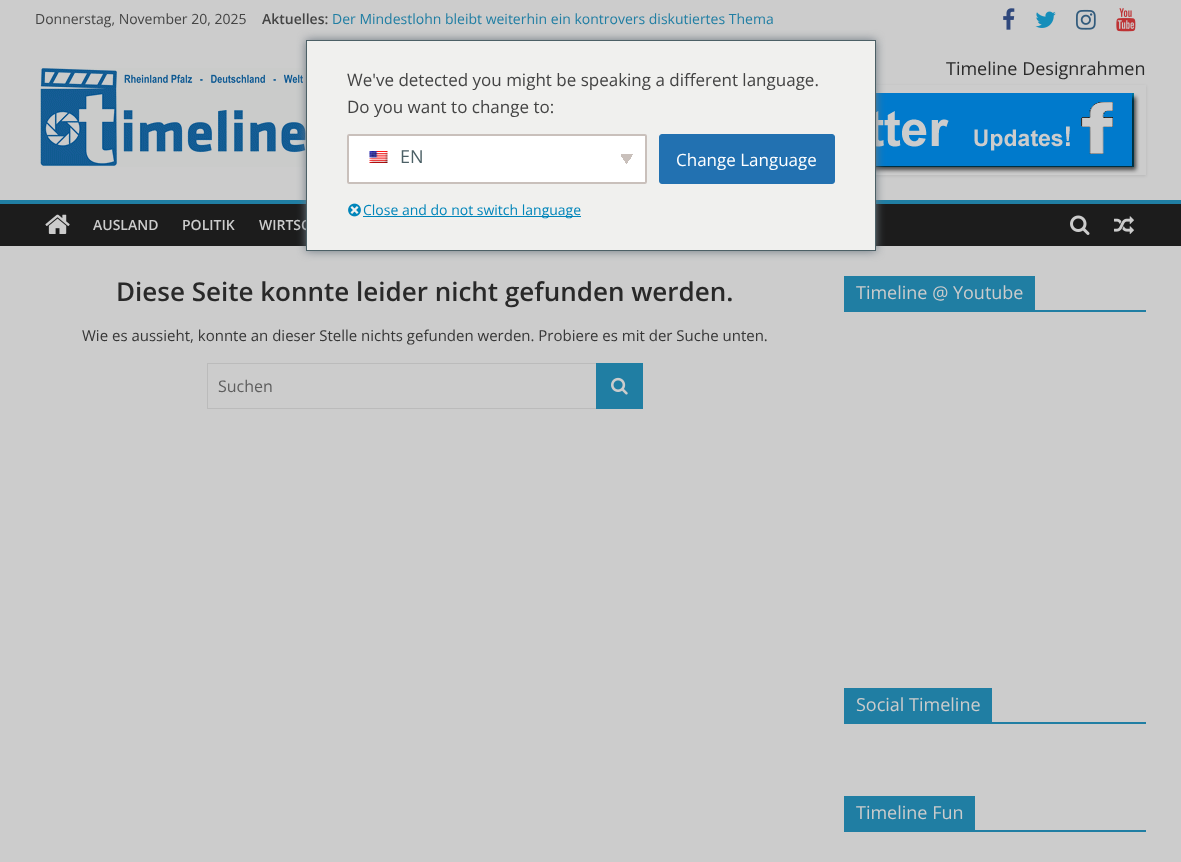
<svg xmlns="http://www.w3.org/2000/svg" width="1181" height="862" viewBox="0 0 1181 862">
  <style>
    .t1 { font: 14px Open Sans; fill: #444; }
    .t2 { font: 600 14px Open Sans; fill: #444; }
    .t3 { font: 14px Open Sans; fill: #207ea3; }
    .t4 { font: 18px Open Sans; fill: #292929; }
    .t5 { font: 600 14px Open Sans; fill: #ccc; }
    .t6 { font: 600 26px Open Sans; fill: #292929; }
    .t7 { font: 15px Open Sans; fill: #363636; }
    .t8 { font: 16px Open Sans; fill: #5e5e5e; }
    .t9 { font: 18px Open Sans; fill: #ccc; }
    .t10 { font: 17px Open Sans; fill: #444; }
    .t11 { font: 18px Open Sans; fill: #4c6066; }
    .t12 { font: 17px Open Sans; fill: #fff; }
    .t13 { font: 14px Open Sans; fill: #0085ba; }
  </style>
  <defs>
    <clipPath id="clip1"><path d="M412 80H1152V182H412ZM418 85H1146V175H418Z" clip-rule="evenodd"/></clipPath>
    <linearGradient id="g1" gradientUnits="userSpaceOnUse" x1="625" y1="157" x2="634" y2="163"><stop offset="0.5" stop-color="#c9c0bb"/><stop offset="0.5" stop-color="#fff"/></linearGradient>
    <linearGradient id="g2" gradientUnits="userSpaceOnUse" x1="619" y1="163" x2="628" y2="157"><stop offset="0.5" stop-color="#fff"/><stop offset="0.5" stop-color="#c9c0bb"/></linearGradient>
  </defs>
  <rect width="100%" height="100%" fill="#ccc"/>
  <text x="35" y="24" class="t1">Donnerstag, November 20, 2025</text>
  <text x="262" y="24" class="t2">Aktuelles:</text>
  <text x="332" y="24" class="t3">Der Mindestlohn bleibt weiterhin ein kontrovers diskutiertes Thema</text>
  <image x="1003" y="8" width="12" height="22" href="images/1.png"/>
  <image x="1035" y="11" width="21" height="17" href="images/2.png"/>
  <image x="1076" y="9" width="20" height="21" href="images/3.png"/>
  <image x="1116" y="8" width="20" height="24" href="images/4.png"/>
  <image x="40" y="68" width="266" height="99" href="images/5.png"/>
  <text x="946" y="75" class="t4">Timeline Designrahmen</text>
  <g clip-path="url(#clip1)">
    <rect x="418" y="86" width="728" height="90" fill="#0000001a" filter="blur(1.5px)"/>
  </g>
  <image x="876" y="93" width="264" height="81" href="images/6.png"/>
  <rect x="0" y="204" width="1181" height="42" fill="#1c1c1c"/>
  <rect x="0" y="200" width="1181" height="4" fill="#207ea3"/>
  <image x="45" y="214" width="25" height="20" href="images/7.png"/>
  <text x="93" y="230" class="t5">AUSLAND</text>
  <text x="182" y="230" class="t5">POLITIK</text>
  <text x="259" y="230" class="t5">WIRTSC</text>
  <image x="1070" y="215" width="20" height="20" href="images/8.png"/>
  <image x="1114" y="216" width="20" height="18" href="images/9.png"/>
  <text x="116" y="301" class="t6">Diese Seite konnte leider nicht gefunden werden.</text>
  <text x="82" y="341" class="t7">Wie es aussieht, konnte an dieser Stelle nichts gefunden werden. Probiere es mit der Suche unten.</text>
  <rect x="207.5" y="363.5" width="389" height="45" fill="none" stroke="#bbb"/>
  <text x="218" y="392" class="t8">Suchen</text>
  <rect x="596" y="363" width="47" height="46" fill="#207ea3"/>
  <image x="611" y="377" width="17" height="18" href="images/10.png"/>
  <rect x="844" y="310" width="302" height="2" fill="#207ea3"/>
  <rect x="844" y="276" width="191" height="34" fill="#207ea3"/>
  <text x="856" y="299" class="t9">Timeline @ Youtube</text>
  <rect x="844" y="722" width="302" height="2" fill="#207ea3"/>
  <rect x="844" y="688" width="148" height="34" fill="#207ea3"/>
  <text x="856" y="711" class="t9">Social Timeline</text>
  <rect x="844" y="830" width="302" height="2" fill="#207ea3"/>
  <rect x="844" y="796" width="131" height="34" fill="#207ea3"/>
  <text x="856" y="819" class="t9">Timeline Fun</text>
  <rect x="306" y="40" width="570" height="211" fill="#6c7781" filter="blur(5px)"/>
  <rect x="306.5" y="40.5" width="569" height="210" fill="#f0f0ee" stroke="#4c6066"/>
  <text x="347" y="86" class="t10">We've detected you might be speaking a different language.</text>
  <text x="347" y="113" class="t10">Do you want to change to:</text>
  <rect x="347" y="134" width="300" height="50" rx="2" fill="#fff"/>
  <rect x="627" y="154" width="6" height="12" fill="url(#g1)"/>
  <rect x="621" y="154" width="6" height="12" fill="url(#g2)"/>
  <rect x="348" y="135" width="298" height="48" rx="1" fill="none" stroke="#c9c0bb" stroke-width="2"/>
  <image x="369" y="151" width="19" height="12" href="images/11.png"/>
  <text x="400" y="163" class="t11">EN</text>
  <rect x="659.5" y="134.5" width="175" height="49" rx="2.5" fill="#2271b1" stroke="#2271b1"/>
  <text x="676" y="166" class="t12">Change Language</text>
  <image x="348" y="203" width="13" height="14" href="images/12.png"/>
  <rect x="363" y="216" width="218" height="1" fill="#0085ba"/>
  <text x="363" y="215" class="t13">Close and do not switch language</text>
</svg>
